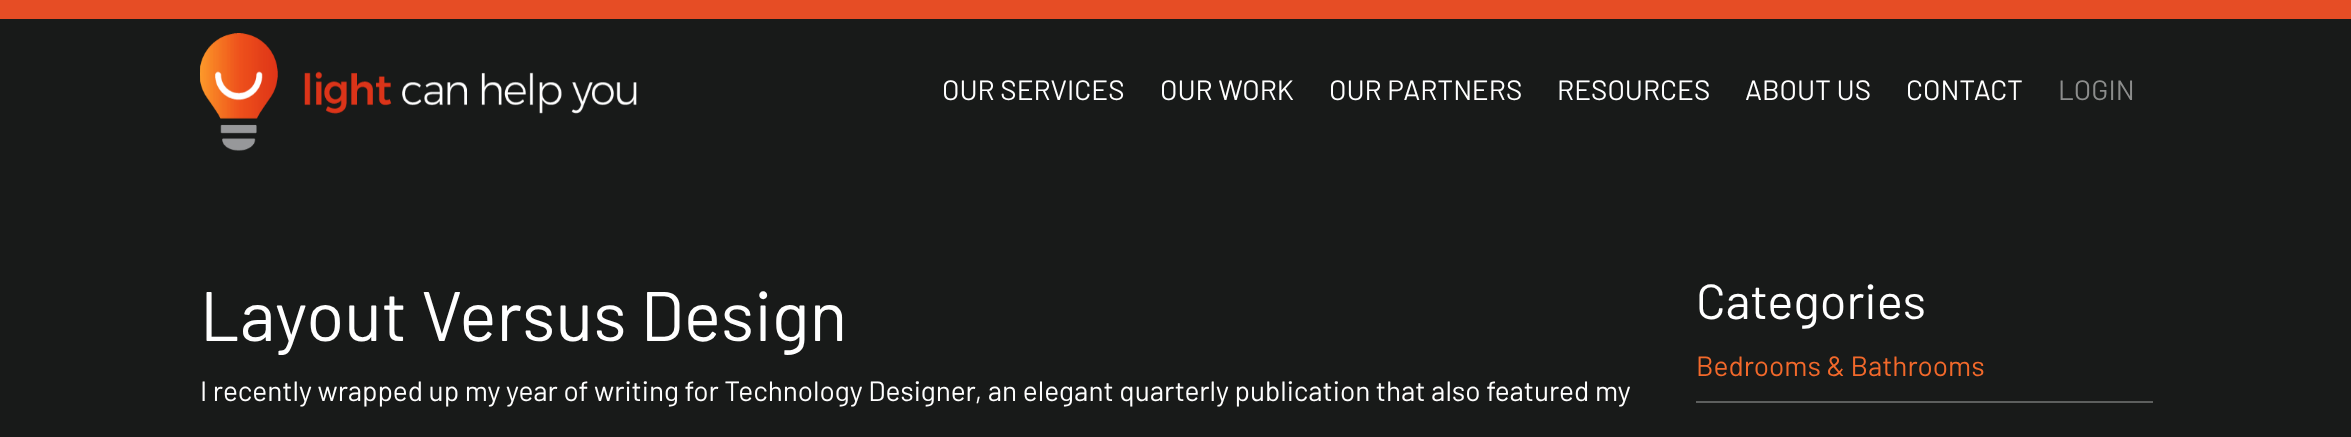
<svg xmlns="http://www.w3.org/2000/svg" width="2351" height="437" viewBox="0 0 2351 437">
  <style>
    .t1 { font: 28px Barlow; fill: #fff; }
    .t2 { font: 28px Barlow; fill: #8c8d8c; }
    .t3 { font: 70px Barlow; fill: #fff; }
    .t4 { font: 49px Barlow; fill: #fff; }
    .t5 { font: 28px Barlow; fill: #f2692b; }
  </style>
  <rect width="100%" height="100%" fill="#181a19"/>
  <rect x="0" y="0" width="2351" height="19" fill="#e64d25"/>
  <image x="200" y="33" width="437" height="118" href="images/1.png"/>
  <text x="942" y="100" class="t1">OUR SERVICES</text>
  <text x="1160" y="100" class="t1">OUR WORK</text>
  <text x="1329" y="100" class="t1">OUR PARTNERS</text>
  <text x="1557" y="100" class="t1">RESOURCES</text>
  <text x="1745" y="100" class="t1">ABOUT US</text>
  <text x="1906" y="100" class="t1">CONTACT</text>
  <text x="2058" y="100" class="t2">LOGIN</text>
  <text x="200" y="341" class="t3">Layout Versus Design</text>
  <text x="200" y="401" class="t1">I recently wrapped up my year of writing for Technology Designer, an elegant quarterly publication that also featured my</text>
  <text x="1696" y="319" class="t4">Categories</text>
  <rect x="1696" y="401" width="457" height="2" fill="#5d5f5e"/>
  <text x="1696" y="376" class="t5">Bedrooms &amp; Bathrooms</text>
</svg>
